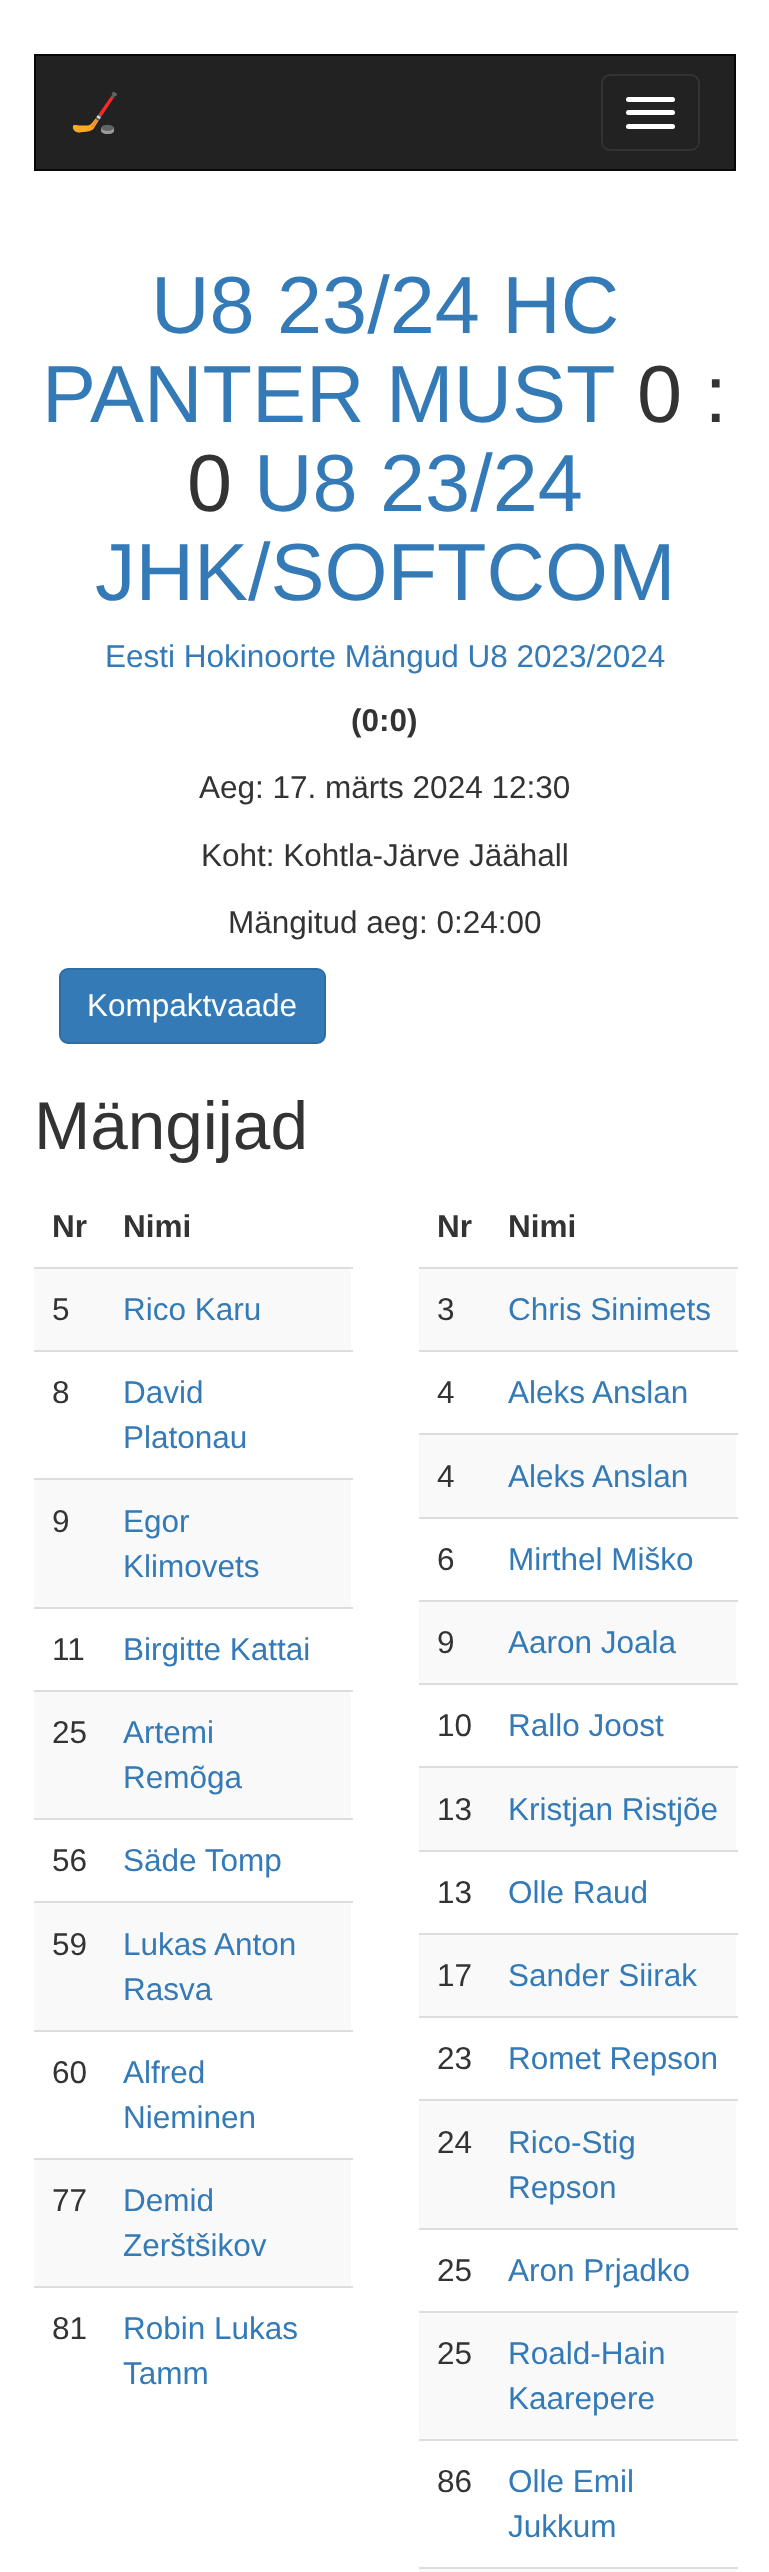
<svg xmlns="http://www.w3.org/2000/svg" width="769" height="2572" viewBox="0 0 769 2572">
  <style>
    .t1 { font: 40px Noto Color Emoji; fill: #9d9d9d; }
    .t2 { font: 81px Liberation Sans; fill: #337ab7; }
    .t3 { font: 81px Liberation Sans; fill: #333; }
    .t4 { font: 31.5px Liberation Sans; fill: #337ab7; }
    .t5 { font: bold 31.5px Liberation Sans; fill: #333; }
    .t6 { font: 31.5px Liberation Sans; fill: #333; }
    .t7 { font: 31.5px Liberation Sans; fill: #fff; }
    .t8 { font: 67.5px Liberation Sans; fill: #333; }
  </style>
  <rect width="100%" height="100%" fill="#fff"/>
  <rect x="35" y="55" width="700" height="115" fill="#222" stroke="#080808" stroke-width="2"/>
  <text x="70" y="126" class="t1">🏒</text>
  <rect x="602" y="75" width="97" height="75" rx="8" fill="none" stroke="#333" stroke-width="2"/>
  <rect x="626" y="97" width="49" height="5" rx="2.5" fill="#fff"/>
  <rect x="626" y="110" width="49" height="5" rx="2.5" fill="#fff"/>
  <rect x="626" y="124" width="49" height="5" rx="2.5" fill="#fff"/>
  <text x="151" y="333" class="t2">U8 23/24 HC</text>
  <text x="42" y="422" word-spacing="-1" class="t2">PANTER MUST</text>
  <text x="637" y="422" class="t3">0 :</text>
  <text x="187" y="511" class="t3">0</text>
  <text x="254" y="511" class="t2">U8 23/24</text>
  <text x="95" y="600" class="t2">JHK/SOFTCOM</text>
  <text x="105" y="667" class="t4">Eesti Hokinoorte Mängud U8 2023/2024</text>
  <text x="351" y="731" class="t5">(0:0)</text>
  <text x="199" y="798" class="t6">Aeg: 17. märts 2024 12:30</text>
  <text x="201" y="866" class="t6">Koht: Kohtla-Järve Jäähall</text>
  <text x="228" y="933" class="t6">Mängitud aeg: 0:24:00</text>
  <rect x="60" y="969" width="265" height="74" rx="8" fill="#337ab7" stroke="#2e6da4" stroke-width="2"/>
  <text x="87" y="1016" class="t7">Kompaktvaade</text>
  <text x="34" y="1149" class="t8">Mängijad</text>
  <text x="52" y="1237" class="t5">Nr</text>
  <text x="123" y="1237" class="t5">Nimi</text>
  <rect x="34" y="1269" width="317" height="81" fill="#f9f9f9"/>
  <text x="52" y="1320" class="t6">5</text>
  <rect x="34" y="1267" width="319" height="2" fill="#ddd"/>
  <text x="123" y="1320" class="t4">Rico Karu</text>
  <text x="52" y="1403" class="t6">8</text>
  <rect x="34" y="1350" width="319" height="2" fill="#ddd"/>
  <text x="123" y="1403" class="t4">David</text>
  <text x="123" y="1448" class="t4">Platonau</text>
  <rect x="34" y="1480" width="317" height="127" fill="#f9f9f9"/>
  <text x="52" y="1532" class="t6">9</text>
  <rect x="34" y="1478" width="319" height="2" fill="#ddd"/>
  <text x="123" y="1532" class="t4">Egor</text>
  <text x="123" y="1577" class="t4">Klimovets</text>
  <text x="52" y="1660" class="t6">11</text>
  <rect x="34" y="1607" width="319" height="2" fill="#ddd"/>
  <text x="123" y="1660" class="t4">Birgitte Kattai</text>
  <rect x="34" y="1692" width="317" height="126" fill="#f9f9f9"/>
  <text x="52" y="1743" class="t6">25</text>
  <rect x="34" y="1690" width="319" height="2" fill="#ddd"/>
  <text x="123" y="1743" class="t4">Artemi</text>
  <text x="123" y="1788" class="t4">Remõga</text>
  <text x="52" y="1871" class="t6">56</text>
  <rect x="34" y="1818" width="319" height="2" fill="#ddd"/>
  <text x="123" y="1871" class="t4">Säde Tomp</text>
  <rect x="34" y="1903" width="317" height="127" fill="#f9f9f9"/>
  <text x="52" y="1955" class="t6">59</text>
  <rect x="34" y="1901" width="319" height="2" fill="#ddd"/>
  <text x="123" y="1955" class="t4">Lukas Anton</text>
  <text x="123" y="2000" class="t4">Rasva</text>
  <text x="52" y="2083" class="t6">60</text>
  <rect x="34" y="2030" width="319" height="2" fill="#ddd"/>
  <text x="123" y="2083" class="t4">Alfred</text>
  <text x="123" y="2128" class="t4">Nieminen</text>
  <rect x="34" y="2160" width="317" height="126" fill="#f9f9f9"/>
  <text x="52" y="2211" class="t6">77</text>
  <rect x="34" y="2158" width="319" height="2" fill="#ddd"/>
  <text x="123" y="2211" class="t4">Demid</text>
  <text x="123" y="2256" class="t4">Zerštšikov</text>
  <text x="52" y="2339" class="t6">81</text>
  <rect x="34" y="2286" width="319" height="2" fill="#ddd"/>
  <text x="123" y="2339" class="t4">Robin Lukas</text>
  <text x="123" y="2384" class="t4">Tamm</text>
  <text x="437" y="1237" class="t5">Nr</text>
  <text x="508" y="1237" class="t5">Nimi</text>
  <rect x="419" y="1269" width="317" height="81" fill="#f9f9f9"/>
  <text x="437" y="1320" class="t6">3</text>
  <rect x="419" y="1267" width="319" height="2" fill="#ddd"/>
  <text x="508" y="1320" class="t4">Chris Sinimets</text>
  <text x="437" y="1403" class="t6">4</text>
  <rect x="419" y="1350" width="319" height="2" fill="#ddd"/>
  <text x="508" y="1403" class="t4">Aleks Anslan</text>
  <rect x="419" y="1435" width="317" height="82" fill="#f9f9f9"/>
  <text x="437" y="1487" class="t6">4</text>
  <rect x="419" y="1433" width="319" height="2" fill="#ddd"/>
  <text x="508" y="1487" class="t4">Aleks Anslan</text>
  <text x="437" y="1570" class="t6">6</text>
  <rect x="419" y="1517" width="319" height="2" fill="#ddd"/>
  <text x="508" y="1570" class="t4">Mirthel Miško</text>
  <rect x="419" y="1602" width="317" height="81" fill="#f9f9f9"/>
  <text x="437" y="1653" class="t6">9</text>
  <rect x="419" y="1600" width="319" height="2" fill="#ddd"/>
  <text x="508" y="1653" class="t4">Aaron Joala</text>
  <text x="437" y="1736" class="t6">10</text>
  <rect x="419" y="1683" width="319" height="2" fill="#ddd"/>
  <text x="508" y="1736" class="t4">Rallo Joost</text>
  <rect x="419" y="1768" width="317" height="82" fill="#f9f9f9"/>
  <text x="437" y="1820" class="t6">13</text>
  <rect x="419" y="1766" width="319" height="2" fill="#ddd"/>
  <text x="508" y="1820" class="t4">Kristjan Ristjõe</text>
  <text x="437" y="1903" class="t6">13</text>
  <rect x="419" y="1850" width="319" height="2" fill="#ddd"/>
  <text x="508" y="1903" class="t4">Olle Raud</text>
  <rect x="419" y="1935" width="317" height="81" fill="#f9f9f9"/>
  <text x="437" y="1986" class="t6">17</text>
  <rect x="419" y="1933" width="319" height="2" fill="#ddd"/>
  <text x="508" y="1986" class="t4">Sander Siirak</text>
  <text x="437" y="2069" class="t6">23</text>
  <rect x="419" y="2016" width="319" height="2" fill="#ddd"/>
  <text x="508" y="2069" class="t4">Romet Repson</text>
  <rect x="419" y="2101" width="317" height="127" fill="#f9f9f9"/>
  <text x="437" y="2153" class="t6">24</text>
  <rect x="419" y="2099" width="319" height="2" fill="#ddd"/>
  <text x="508" y="2153" class="t4">Rico-Stig</text>
  <text x="508" y="2198" class="t4">Repson</text>
  <text x="437" y="2281" class="t6">25</text>
  <rect x="419" y="2228" width="319" height="2" fill="#ddd"/>
  <text x="508" y="2281" class="t4">Aron Prjadko</text>
  <rect x="419" y="2313" width="317" height="126" fill="#f9f9f9"/>
  <text x="437" y="2364" class="t6">25</text>
  <rect x="419" y="2311" width="319" height="2" fill="#ddd"/>
  <text x="508" y="2364" class="t4">Roald-Hain</text>
  <text x="508" y="2409" class="t4">Kaarepere</text>
  <text x="437" y="2492" class="t6">86</text>
  <rect x="419" y="2439" width="319" height="2" fill="#ddd"/>
  <text x="508" y="2492" class="t4">Olle Emil</text>
  <text x="508" y="2537" class="t4">Jukkum</text>
  <rect x="419" y="2569" width="317" height="3" fill="#f9f9f9"/>
  <rect x="419" y="2567" width="319" height="2" fill="#ddd"/>
</svg>
